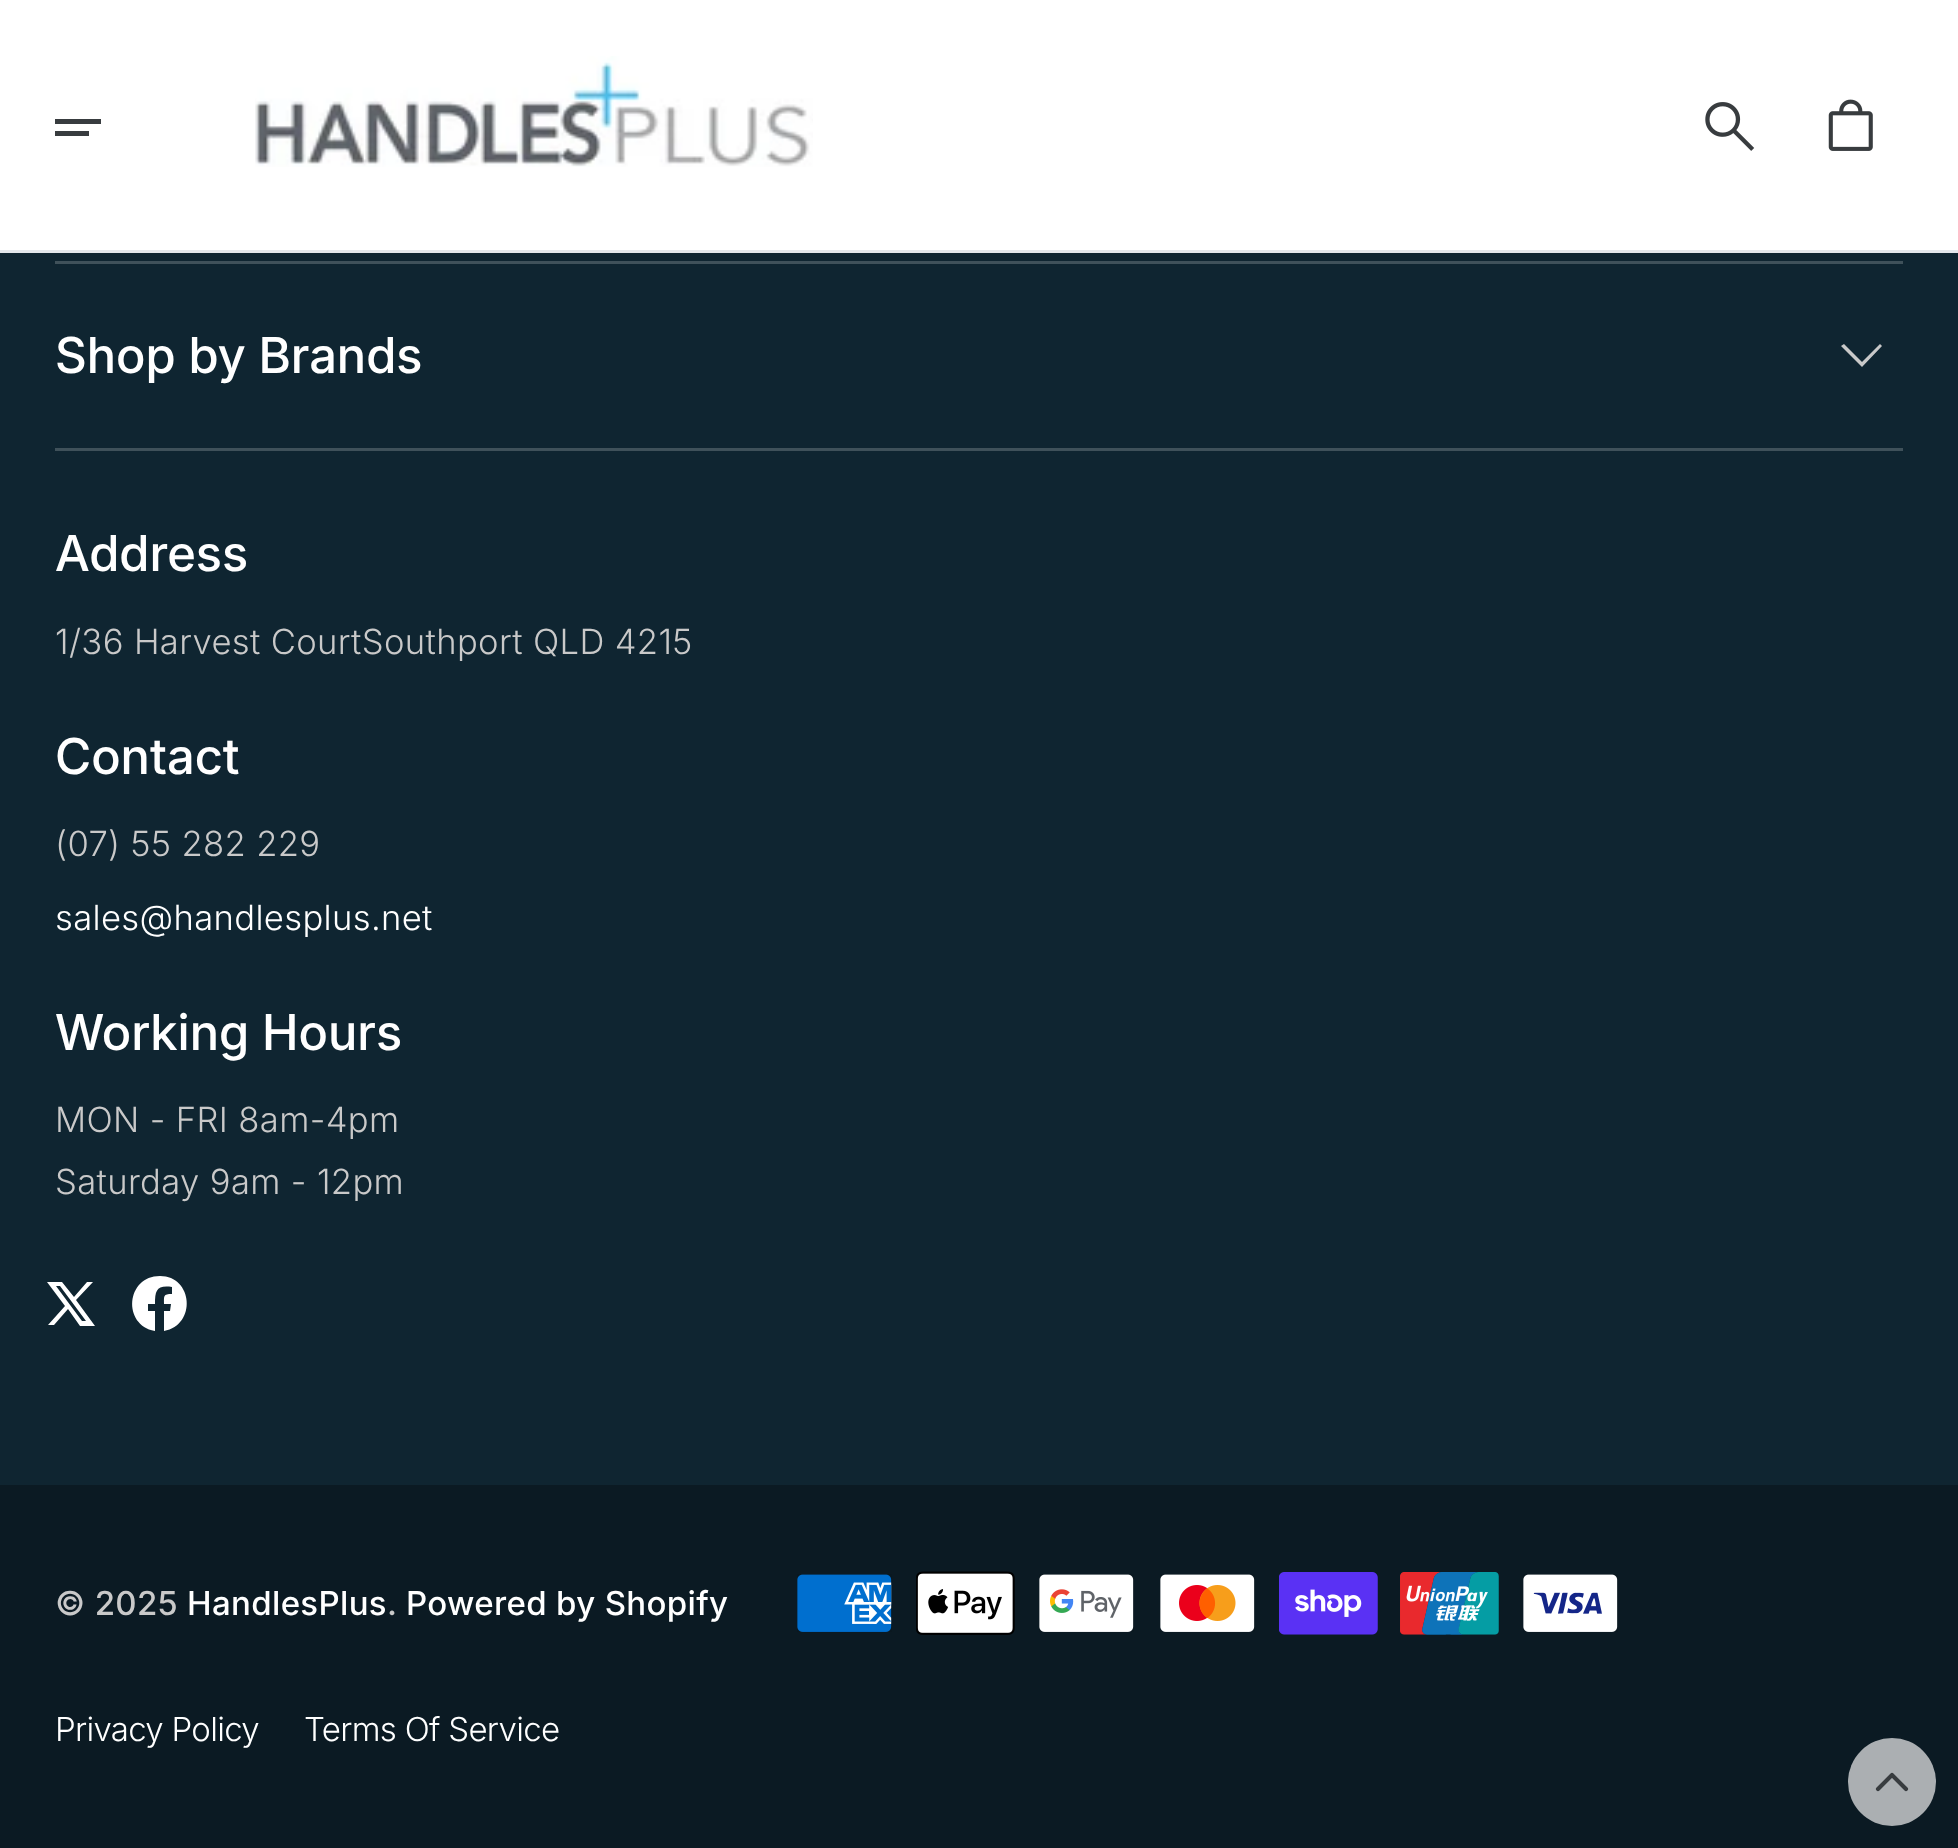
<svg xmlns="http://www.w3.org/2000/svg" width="1958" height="1848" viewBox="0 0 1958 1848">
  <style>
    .t1 { font: 500 49.5px 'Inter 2'; fill: #fff; }
    .t2 { font: 300 34.6px Inter; letter-spacing: 0.35px; fill: #c9c9c9; }
    .t3 { font: 300 34.6px Inter; letter-spacing: 0.35px; fill: #fff; }
    .t4 { font: 500 33px Inter; letter-spacing: 0.35px; fill: #c9c9c9; }
    .t5 { font: 500 33px Inter; letter-spacing: 0.35px; fill: #fff; }
    .t6 { font: 300 33px Inter; letter-spacing: -0.7px; fill: #fff; }
  </style>
  <rect width="100%" height="100%" fill="#0f2531"/>
  <rect x="0" y="0" width="1958" height="250" fill="#fff"/>
  <path d="M101 119H55V124H101ZM89 131H55V136H89Z" fill="#383c3f" fill-rule="evenodd"/>
  <image x="255" y="56" width="558" height="111" href="images/1.png"/>
  <image x="1705" y="102" width="50" height="49" href="images/2.png"/>
  <image x="1828" y="99" width="45" height="52" href="images/3.png"/>
  <rect x="0" y="250" width="1958" height="3" fill="#e4e7eb"/>
  <rect x="55" y="261" width="1848" height="3" fill="#3f515a"/>
  <rect x="55" y="448" width="1848" height="3" fill="#3f515a"/>
  <text x="55" y="373" class="t1">Shop by Brands</text>
  <path d="M1882 346L1862 367L1841 346L1844 344L1862 362L1880 344Z" fill="#c9c9c9"/>
  <text x="55" y="571" class="t1">Address</text>
  <text x="55" y="654" class="t2">1/36 Harvest CourtSouthport QLD 4215</text>
  <text x="55" y="774" class="t1">Contact</text>
  <text x="55" y="856" class="t2">(07) 55 282 229</text>
  <text x="55" y="930" class="t3">sales@handlesplus.net</text>
  <text x="55" y="1050" class="t1">Working Hours</text>
  <text x="55" y="1132" class="t2">MON - FRI 8am-4pm</text>
  <text x="55" y="1194" class="t2">Saturday 9am - 12pm</text>
  <path d="M62 1282H47L65 1306L48 1325H54L68 1309L80 1326H95L76 1300L93 1282H87L74 1297ZM82 1321L56 1286H60L86 1321Z" fill="#fff"/>
  <path d="M160 1276C126 1276 122 1325 155 1331V1311H148V1304H155C155 1290 157 1285 172 1287V1294C163 1294 164 1296 164 1304H171L170 1311H164V1331C197 1325 193 1276 160 1276Z" fill="#fff"/>
  <rect x="0" y="1485" width="1958" height="363" fill="#0b1a23"/>
  <text x="55" y="1615" class="t4">© 2025</text>
  <text x="187" y="1615" class="t5">HandlesPlus</text>
  <text x="387" y="1615" class="t4">.</text>
  <text x="406" y="1615" class="t5">Powered by Shopify</text>
  <image x="797" y="1574" width="95" height="58" href="images/4.png"/>
  <image x="916" y="1571" width="99" height="64" href="images/5.png"/>
  <image x="1039" y="1574" width="95" height="58" href="images/6.png"/>
  <image x="1160" y="1574" width="95" height="58" href="images/7.png"/>
  <image x="1279" y="1572" width="99" height="63" href="images/8.png"/>
  <image x="1400" y="1572" width="99" height="63" href="images/9.png"/>
  <image x="1523" y="1574" width="95" height="58" href="images/10.png"/>
  <text x="55" y="1741" class="t6">Privacy Policy</text>
  <text x="304" y="1741" class="t6">Terms Of Service</text>
  <circle cx="1892" cy="1782" r="44" fill="#abafb2"/>
  <path d="M1878 1789L1892 1775L1906 1789" fill="none" stroke="#383c3f" stroke-width="4.1" stroke-linecap="round" stroke-linejoin="round"/>
</svg>
